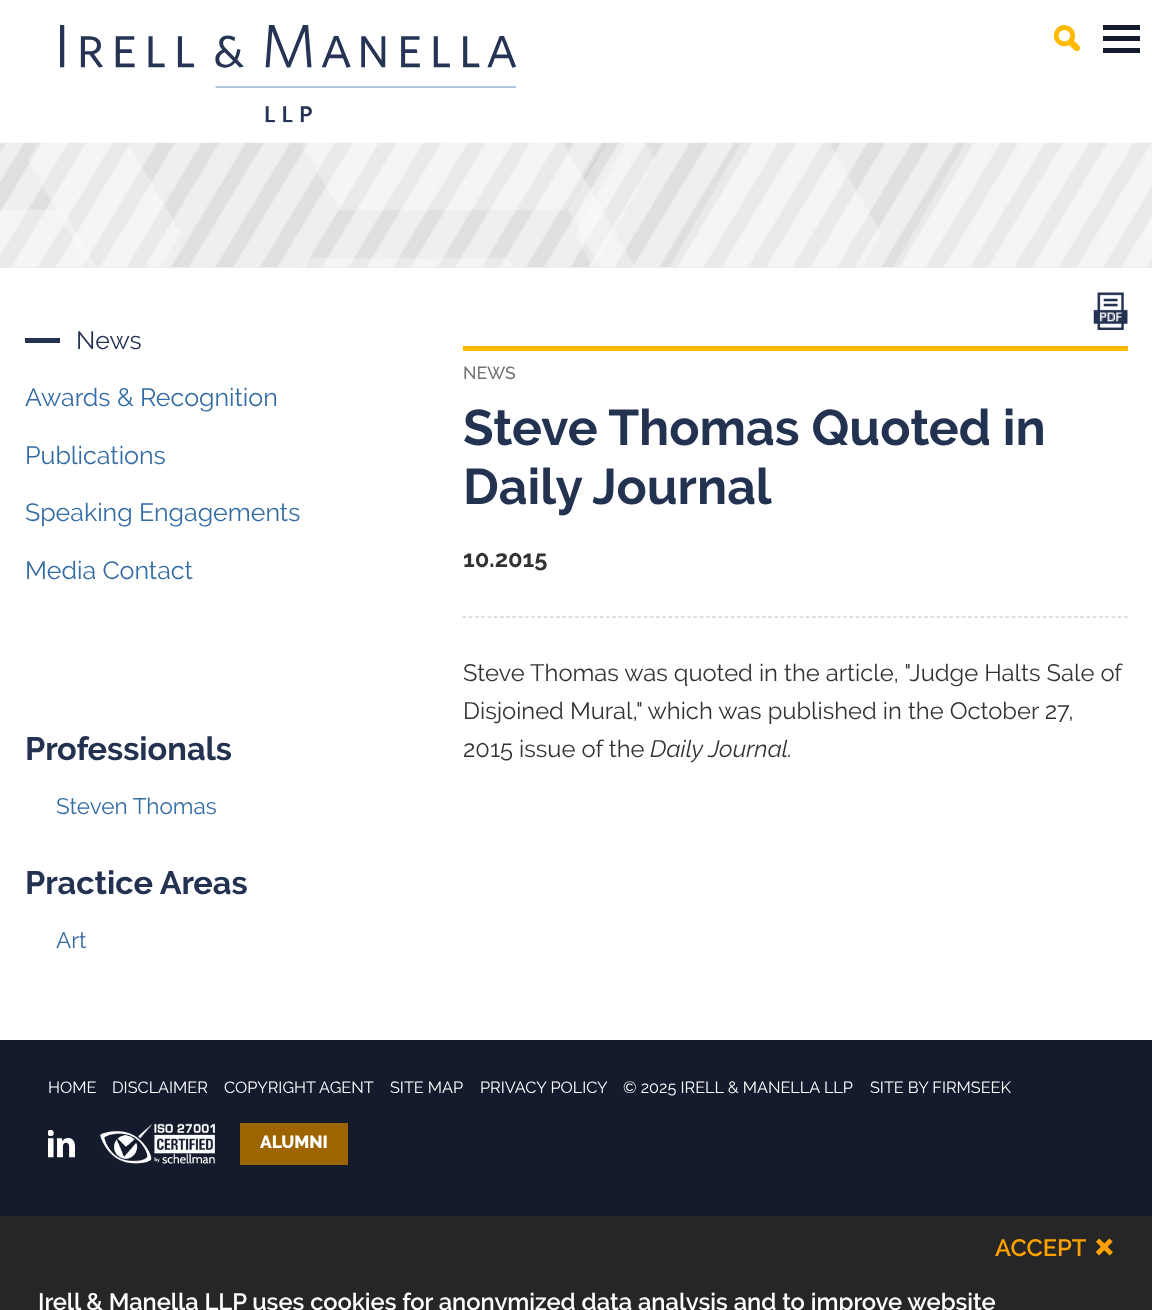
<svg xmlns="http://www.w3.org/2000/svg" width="1152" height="1310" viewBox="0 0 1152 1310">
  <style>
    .t1 { font: 25px Raleway; fill: #243252; }
    .t2 { font: 25px Raleway; fill: #336ba3; }
    .t3 { font: 500 17.5px Raleway; fill: #737373; }
    .t4 { font: bold 50px Raleway; fill: #243252; }
    .t5 { font: bold 23.75px Raleway; fill: #333; }
    .t6 { font: 23.75px Raleway; fill: #333; }
    .t7 { font: italic 23.75px Raleway; fill: #333; }
    .t8 { font: bold 32.5px Raleway; fill: #243252; }
    .t9 { font: 22.5px Raleway; fill: #336ba3; }
    .t10 { font: 16.25px Raleway; fill: #fff; }
    .t11 { font: 800 17.5px Raleway; fill: #fff; }
    .t12 { font: 600 23.75px Raleway; fill: #ffa200; }
    .t13 { font: 600 48px Raleway; fill: #ffa200; }
    .t14 { font: 600 23.75px Raleway; fill: #fff; }
  </style>
  <rect width="100%" height="100%" fill="#fff"/>
  <image x="60" y="25" width="456" height="98" href="images/1.png"/>
  <image x="1054" y="25" width="26" height="26" href="images/2.png"/>
  <rect x="1103" y="25" width="37" height="28" fill="#141b2d"/>
  <rect x="1103" y="30" width="37" height="6" fill="#fff"/>
  <rect x="1103" y="41" width="37" height="7" fill="#fff"/>
  <rect x="0" y="267" width="1152" height="1" fill="#ededed"/>
  <image x="0" y="142" width="1152" height="125" href="images/3.png"/>
  <rect x="25" y="338" width="35" height="5" fill="#243252"/>
  <text x="76" y="349" class="t1">News</text>
  <text x="25" y="406" class="t2">Awards &amp; Recognition</text>
  <text x="25" y="464" class="t2">Publications</text>
  <text x="25" y="521" class="t2">Speaking Engagements</text>
  <text x="25" y="579" class="t2">Media Contact</text>
  <image x="1093" y="292" width="35" height="38" href="images/4.png"/>
  <rect x="463" y="346" width="665" height="5" fill="#ffba00"/>
  <text x="463" y="379" class="t3">NEWS</text>
  <text x="463" y="445" class="t4">Steve Thomas Quoted in</text>
  <text x="463" y="504" class="t4">Daily Journal</text>
  <text x="463" y="567" class="t5">10.2015</text>
  <path d="M462.5 617H1127.5" fill="none" stroke="#bfbfbf" stroke-width="1.2" stroke-dasharray="3.75 2.49"/>
  <text x="463" y="681" class="t6">Steve Thomas was quoted in the article, "Judge Halts Sale of</text>
  <text x="463" y="719" class="t6">Disjoined Mural," which was published in the October 27,</text>
  <text x="463" y="757" class="t6">2015 issue of the</text>
  <text x="650" y="757" class="t7">Daily Journal.</text>
  <text x="25" y="760" class="t8">Professionals</text>
  <text x="56" y="814" class="t9">Steven Thomas</text>
  <text x="25" y="894" class="t8">Practice Areas</text>
  <text x="56" y="948" class="t9">Art</text>
  <rect x="0" y="1040" width="1152" height="176" fill="#141b2d"/>
  <text x="48" y="1093" class="t10">HOME</text>
  <text x="112" y="1093" class="t10">DISCLAIMER</text>
  <text x="224" y="1093" class="t10">COPYRIGHT AGENT</text>
  <text x="390" y="1093" class="t10">SITE MAP</text>
  <text x="480" y="1093" class="t10">PRIVACY POLICY</text>
  <text x="623" y="1093" class="t10">© 2025 IRELL &amp; MANELLA LLP</text>
  <text x="870" y="1093" class="t10">SITE BY FIRMSEEK</text>
  <image x="48" y="1130" width="27" height="28" href="images/5.png"/>
  <image x="100" y="1123" width="115" height="41" href="images/6.png"/>
  <rect x="240" y="1123" width="108" height="42" fill="#9e6400"/>
  <text x="260" y="1148" class="t11">ALUMNI</text>
  <rect x="0" y="1216" width="1152" height="94" fill="#262626"/>
  <text x="995" y="1256" class="t12">ACCEPT</text>
  <text x="1093" y="1260" class="t13">×</text>
  <text x="38" y="1310" class="t14">Irell &amp; Manella LLP uses cookies for anonymized data analysis and to improve website</text>
</svg>
